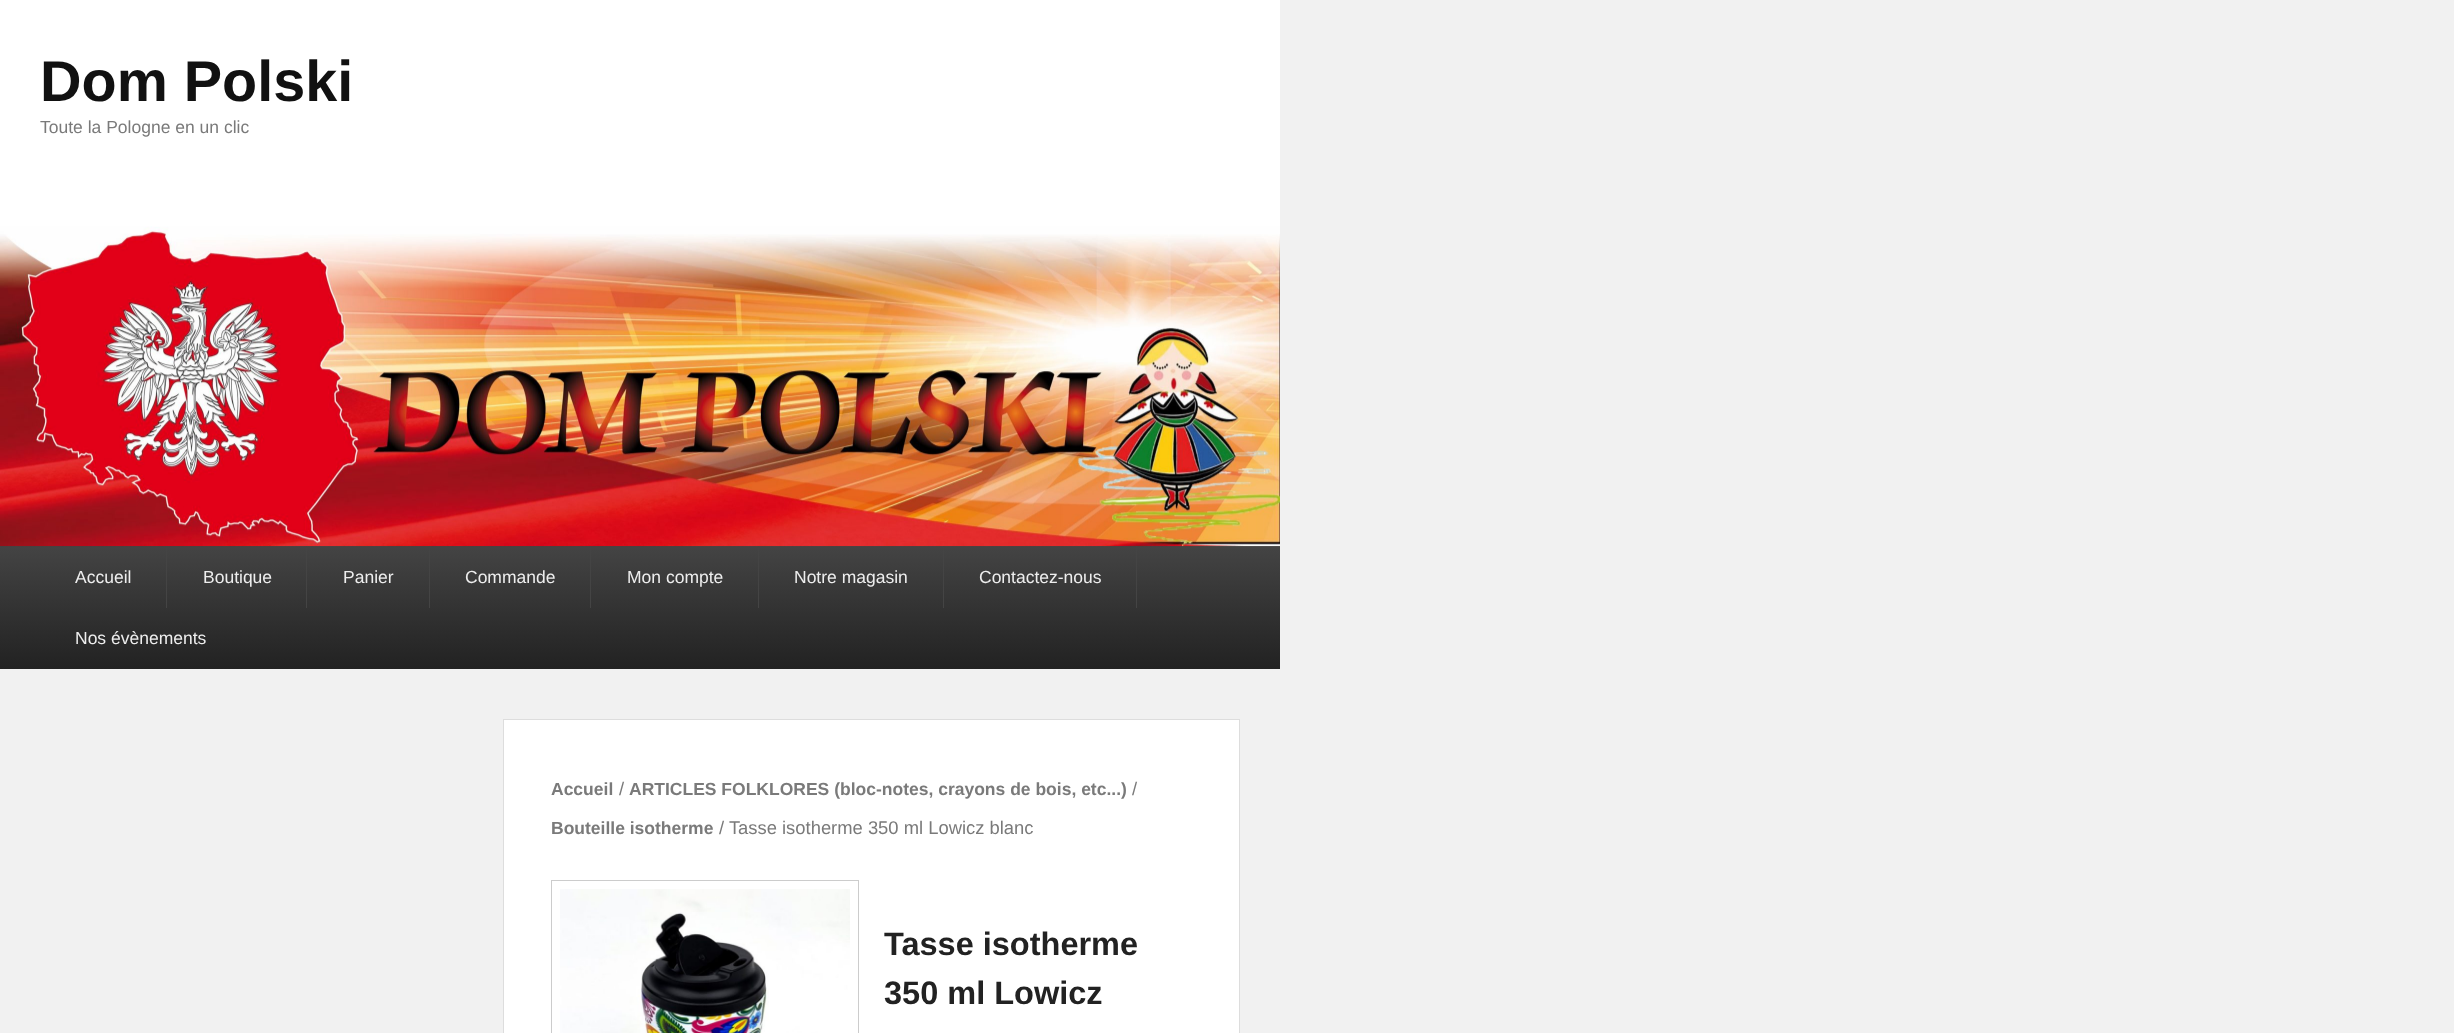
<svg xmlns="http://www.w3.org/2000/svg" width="2454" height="1033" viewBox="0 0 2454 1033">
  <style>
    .t1 { font: bold 57.5px Liberation Sans; fill: #111; }
    .t2 { font: 17.5px Liberation Sans; fill: #7a7a7a; }
    .t3 { font: 17.5px Liberation Sans; fill: #eee; }
    .t4 { font: bold 17.5px Liberation Sans; fill: #7a7a7a; }
    .t5 { font: 18.4px Liberation Sans; fill: #7a7a7a; }
    .t6 { font: bold 32.5px Liberation Sans; fill: #222; }
  </style>
  <defs>
    <linearGradient id="g1" gradientUnits="userSpaceOnUse" x1="640" y1="546" x2="640" y2="669"><stop offset="0" stop-color="#444"/><stop offset="1" stop-color="#222"/></linearGradient>
  </defs>
  <rect width="100%" height="100%" fill="#f1f1f1"/>
  <rect x="0" y="0" width="1280" height="227" fill="#fff"/>
  <text x="40" y="101" class="t1">Dom Polski</text>
  <text x="40" y="133" class="t2">Toute la Pologne en un clic</text>
  <rect x="0" y="546" width="1280" height="123" fill="url(#g1)"/>
  <image x="0" y="226" width="1280" height="321" href="images/1.png"/>
  <rect x="166" y="546" width="1" height="62" fill="#444"/>
  <text x="75" y="583" class="t3">Accueil</text>
  <rect x="306" y="546" width="1" height="62" fill="#444"/>
  <text x="203" y="583" class="t3">Boutique</text>
  <rect x="429" y="546" width="1" height="62" fill="#444"/>
  <text x="343" y="583" class="t3">Panier</text>
  <rect x="590" y="546" width="1" height="62" fill="#444"/>
  <text x="465" y="583" class="t3">Commande</text>
  <rect x="758" y="546" width="1" height="62" fill="#444"/>
  <text x="627" y="583" class="t3">Mon compte</text>
  <rect x="943" y="546" width="1" height="62" fill="#444"/>
  <text x="794" y="583" class="t3">Notre magasin</text>
  <rect x="1136" y="546" width="1" height="62" fill="#444"/>
  <text x="979" y="583" class="t3">Contactez-nous</text>
  <text x="75" y="644" class="t3">Nos évènements</text>
  <rect x="503.5" y="719.5" width="736" height="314" fill="#fff" stroke="#ddd"/>
  <text x="551" y="795" class="t4">Accueil</text>
  <text x="619" y="795" class="t5">/</text>
  <text x="629" y="795" class="t4">ARTICLES FOLKLORES (bloc-notes, crayons de bois, etc...)</text>
  <text x="1132" y="795" class="t5">/</text>
  <text x="551" y="834" class="t4">Bouteille isotherme</text>
  <text x="719" y="834" class="t5">/ Tasse isotherme 350 ml Lowicz blanc</text>
  <rect x="551.5" y="880.5" width="307" height="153" fill="none" stroke="#ccc"/>
  <image x="560" y="889" width="290" height="144" href="images/2.png"/>
  <text x="884" y="955" class="t6">Tasse isotherme</text>
  <text x="884" y="1004" class="t6">350 ml Lowicz</text>
</svg>
